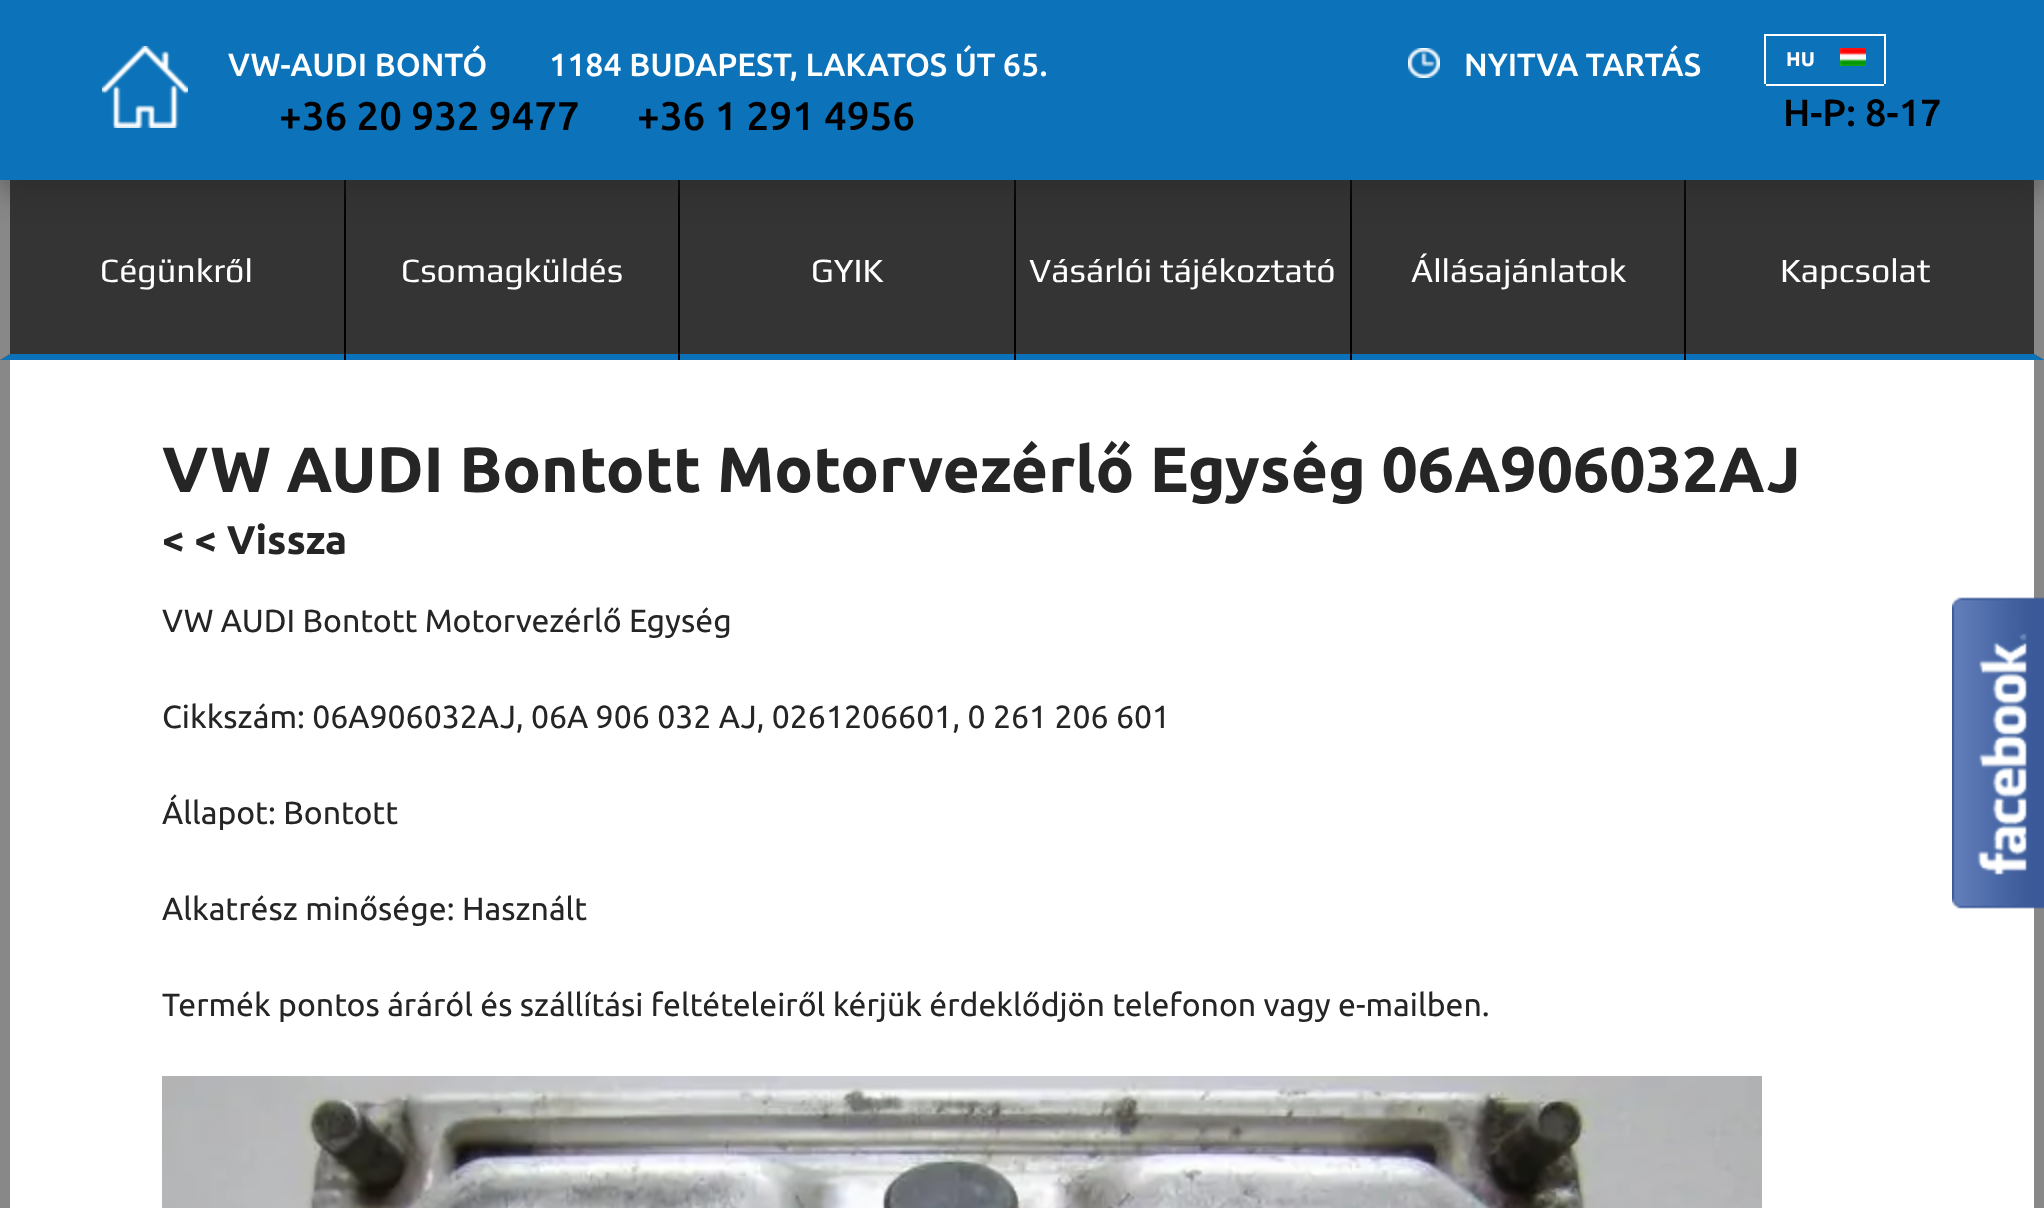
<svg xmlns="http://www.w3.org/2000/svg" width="2044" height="1208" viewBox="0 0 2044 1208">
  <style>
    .t1 { font: 500 32px Ubuntu; fill: #fff; }
    .t2 { font: 500 40px Ubuntu; fill: #000; }
    .t3 { font: bold 20px Ubuntu; fill: #fff; }
    .t4 { font: 500 38px Ubuntu; fill: #000; }
    .t5 { font: 34px Play; fill: #fff; }
    .t6 { font: bold 64px Ubuntu; fill: #252525; }
    .t7 { font: bold 40px Ubuntu; fill: #252525; }
    .t8 { font: 32px Ubuntu; fill: #252525; }
  </style>
  <rect width="100%" height="100%" fill="#343434"/>
  <path d="M2044 180V360L2034 354V180Z" fill="#888"/>
  <path d="M2044 360H0L10 354H2034Z" fill="#0c72b9"/>
  <path d="M0 360V180H10V354Z" fill="#888"/>
  <rect x="344" y="180" width="2" height="180" fill="#000"/>
  <rect x="678" y="180" width="2" height="180" fill="#000"/>
  <rect x="1014" y="180" width="2" height="180" fill="#000"/>
  <rect x="1350" y="180" width="2" height="180" fill="#000"/>
  <rect x="1684" y="180" width="2" height="180" fill="#000"/>
  <rect x="0" y="12" width="2044" height="180" fill="#26262673" filter="blur(15px)"/>
  <rect x="0" y="0" width="2044" height="180" fill="#0c72b9"/>
  <image x="102" y="46" width="86" height="82" href="images/1.png"/>
  <text x="228" y="76" class="t1">VW-AUDI BONTÓ</text>
  <text x="549" y="76" class="t1">1184 BUDAPEST, LAKATOS ÚT 65.</text>
  <text x="279" y="130" class="t2">+36 20 932 9477</text>
  <text x="637" y="130" class="t2">+36 1 291 4956</text>
  <image x="1408" y="48" width="32" height="30" href="images/2.png"/>
  <text x="1464" y="76" class="t1">NYITVA TARTÁS</text>
  <rect x="1764" y="34" width="122" height="2" fill="#fff"/>
  <rect x="1884" y="34" width="2" height="50" fill="#fff"/>
  <rect x="1764" y="34" width="2" height="50" fill="#fff"/>
  <rect x="1766" y="84" width="118" height="2" fill="#fff"/>
  <text x="1786" y="66" class="t3">HU</text>
  <image x="1840" y="48" width="26" height="18" href="images/3.png"/>
  <text x="1783" y="126" class="t4">H-P: 8-17</text>
  <text x="100" y="282" class="t5">Cégünkről</text>
  <text x="401" y="282" class="t5">Csomagküldés</text>
  <text x="811" y="282" class="t5">GYIK</text>
  <text x="1029" y="282" class="t5">Vásárlói tájékoztató</text>
  <text x="1411" y="282" class="t5">Állásajánlatok</text>
  <text x="1780" y="282" class="t5">Kapcsolat</text>
  <rect x="10" y="360" width="2024" height="848" fill="#fff"/>
  <rect x="2034" y="360" width="10" height="848" fill="#888"/>
  <rect x="0" y="360" width="10" height="848" fill="#888"/>
  <text x="162" y="492" class="t6">VW AUDI Bontott Motorvezérlő Egység 06A906032AJ</text>
  <text x="162" y="554" class="t7">&lt; &lt; Vissza</text>
  <text x="162" y="632" class="t8">VW AUDI Bontott Motorvezérlő Egység</text>
  <text x="162" y="728" class="t8">Cikkszám: 06A906032AJ, 06A 906 032 AJ, 0261206601, 0 261 206 601</text>
  <text x="162" y="824" class="t8">Állapot: Bontott</text>
  <text x="162" y="920" class="t8">Alkatrész minősége: Használt</text>
  <text x="162" y="1016" class="t8">Termék pontos áráról és szállítási feltételeiről kérjük érdeklődjön telefonon vagy e-mailben.</text>
  <image x="162" y="1076" width="1600" height="132" href="images/4.png"/>
  <image x="1952" y="597" width="92" height="312" href="images/5.png"/>
</svg>
